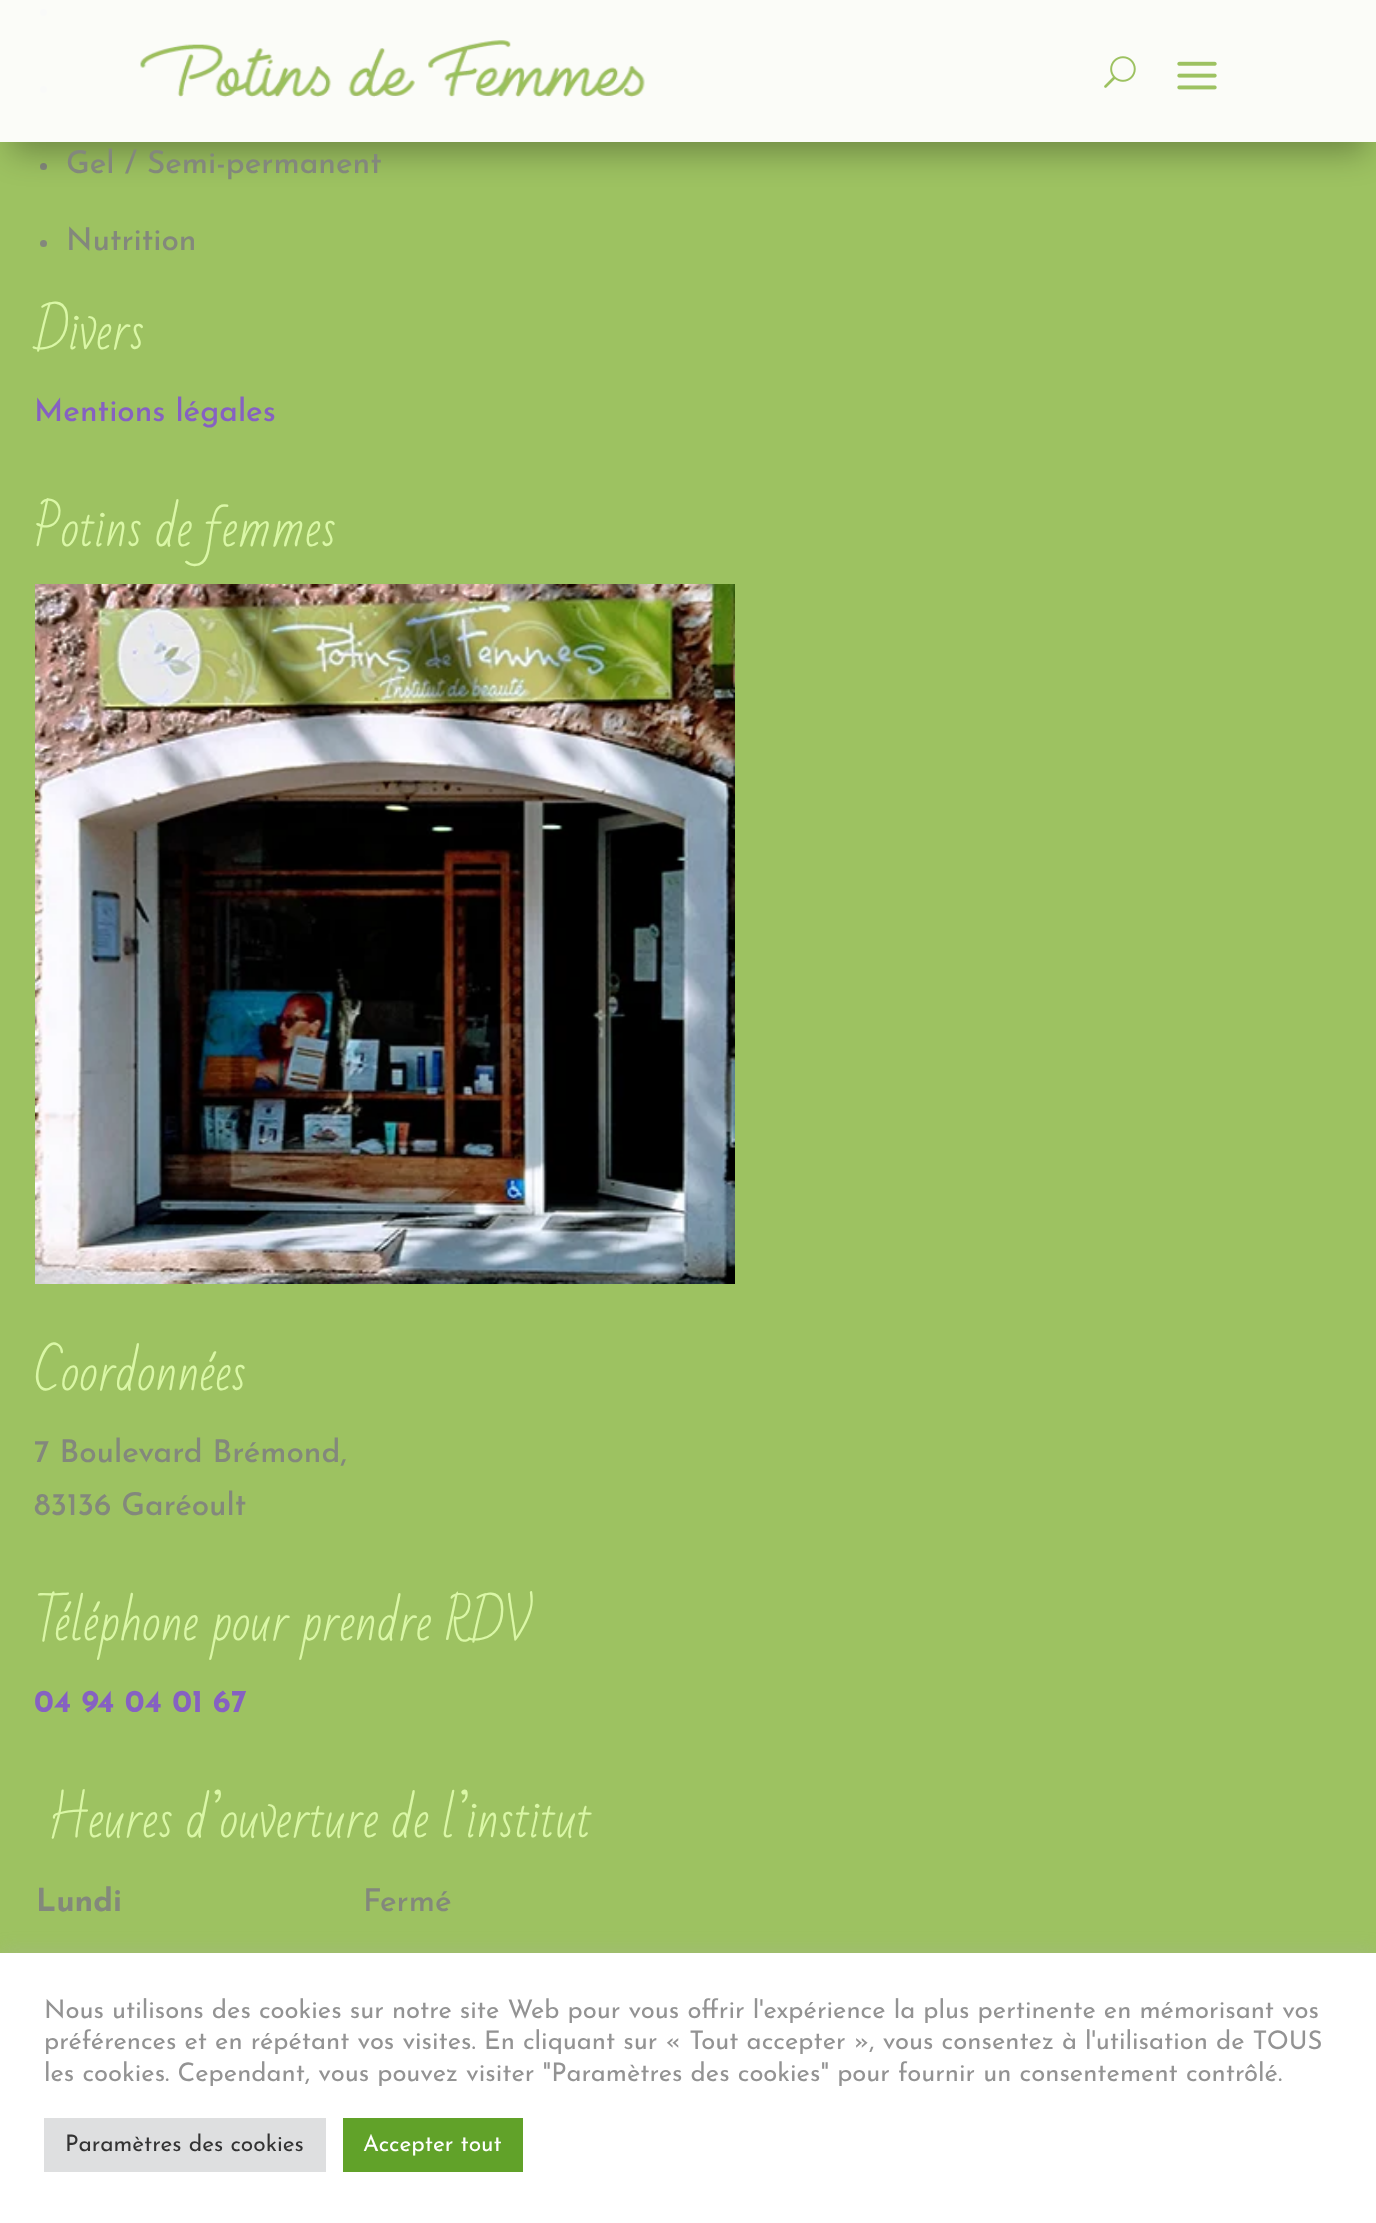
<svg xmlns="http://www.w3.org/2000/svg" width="1376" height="2223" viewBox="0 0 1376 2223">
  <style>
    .t1 { font: 100 31.5px Josefin Sans; fill: #83887c; }
    .t2 { font: 49px Bad Script; fill: #daf7a6; }
    .t3 { font: 100 31.5px Josefin Sans; fill: #8661c2; }
    .t4 { font: 100 31.5px 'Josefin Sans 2'; fill: #8661c2; }
    .t5 { font: 100 31.5px 'Josefin Sans 2'; fill: #83887c; }
    .t6 { font: 100 25.65px 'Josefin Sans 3'; fill: #939393; }
    .t7 { font: 100 22.75px 'Josefin Sans 3'; fill: #333; }
    .t8 { font: 100 22.75px 'Josefin Sans 3'; fill: #fff; }
  </style>
  <defs>
    <clipPath id="clip1"><path d="M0 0H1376V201H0ZM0 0H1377V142H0Z" clip-rule="evenodd"/></clipPath>
  </defs>
  <rect width="100%" height="100%" fill="#9dc261"/>
  <circle cx="43.5" cy="12.5" r="3.5" fill="#83887c"/>
  <circle cx="43.5" cy="89.5" r="3.5" fill="#83887c"/>
  <circle cx="43.5" cy="166.5" r="3.5" fill="#83887c"/>
  <g clip-path="url(#clip1)">
    <rect x="11" y="32" width="1356" height="120" fill="#0000004d" filter="blur(16px)"/>
  </g>
  <rect x="0" y="0" width="1376" height="142" fill="#ffffffd9"/>
  <rect x="0" y="0" width="1376" height="142" fill="#ffffffb3"/>
  <image x="140" y="40" width="505" height="58" href="images/1.png"/>
  <image x="1104" y="56" width="32" height="32" href="images/2.png"/>
  <image x="1177" y="61" width="40" height="29" href="images/3.png"/>
  <text x="66" y="173" class="t1">Gel / Semi-permanent</text>
  <circle cx="43.5" cy="243.5" r="3.5" fill="#83887c"/>
  <text x="66" y="250" class="t1">Nutrition</text>
  <text x="34" y="349" class="t2">Divers</text>
  <text x="34" y="421" class="t3">Mentions légales</text>
  <text x="34" y="546" class="t2">Potins de femmes</text>
  <image x="35" y="584" width="700" height="700" href="images/4.png"/>
  <text x="34" y="1390" class="t2">Coordonnées</text>
  <text x="34" y="1462" class="t1">7 Boulevard Brémond,</text>
  <text x="34" y="1515" class="t1">83136 Garéoult</text>
  <text x="34" y="1640" class="t2">Téléphone pour prendre RDV</text>
  <text x="34" y="1712" class="t4">04 94 04 01 67</text>
  <text x="47" y="1837" class="t2">Heures d’ouverture de l’institut</text>
  <text x="36" y="1911" class="t5">Lundi</text>
  <text x="363" y="1911" class="t1">Fermé</text>
  <rect x="0" y="1951" width="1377" height="272" fill="#acabab4d" filter="blur(9px)"/>
  <rect x="0" y="1953" width="1376" height="270" fill="#fff"/>
  <text x="44" y="2018" class="t6">Nous utilisons des cookies sur notre site Web pour vous offrir l'expérience la plus pertinente en mémorisant vos</text>
  <text x="44" y="2049" class="t6">préférences et en répétant vos visites. En cliquant sur « Tout accepter », vous consentez à l'utilisation de TOUS</text>
  <text x="44" y="2081" class="t6">les cookies. Cependant, vous pouvez visiter "Paramètres des cookies" pour fournir un consentement contrôlé.</text>
  <rect x="44" y="2118" width="282" height="54" fill="#dedfe0"/>
  <text x="65" y="2151" class="t7">Paramètres des cookies</text>
  <rect x="343" y="2118" width="180" height="54" fill="#61a229"/>
  <text x="363" y="2151" class="t8">Accepter tout</text>
</svg>
